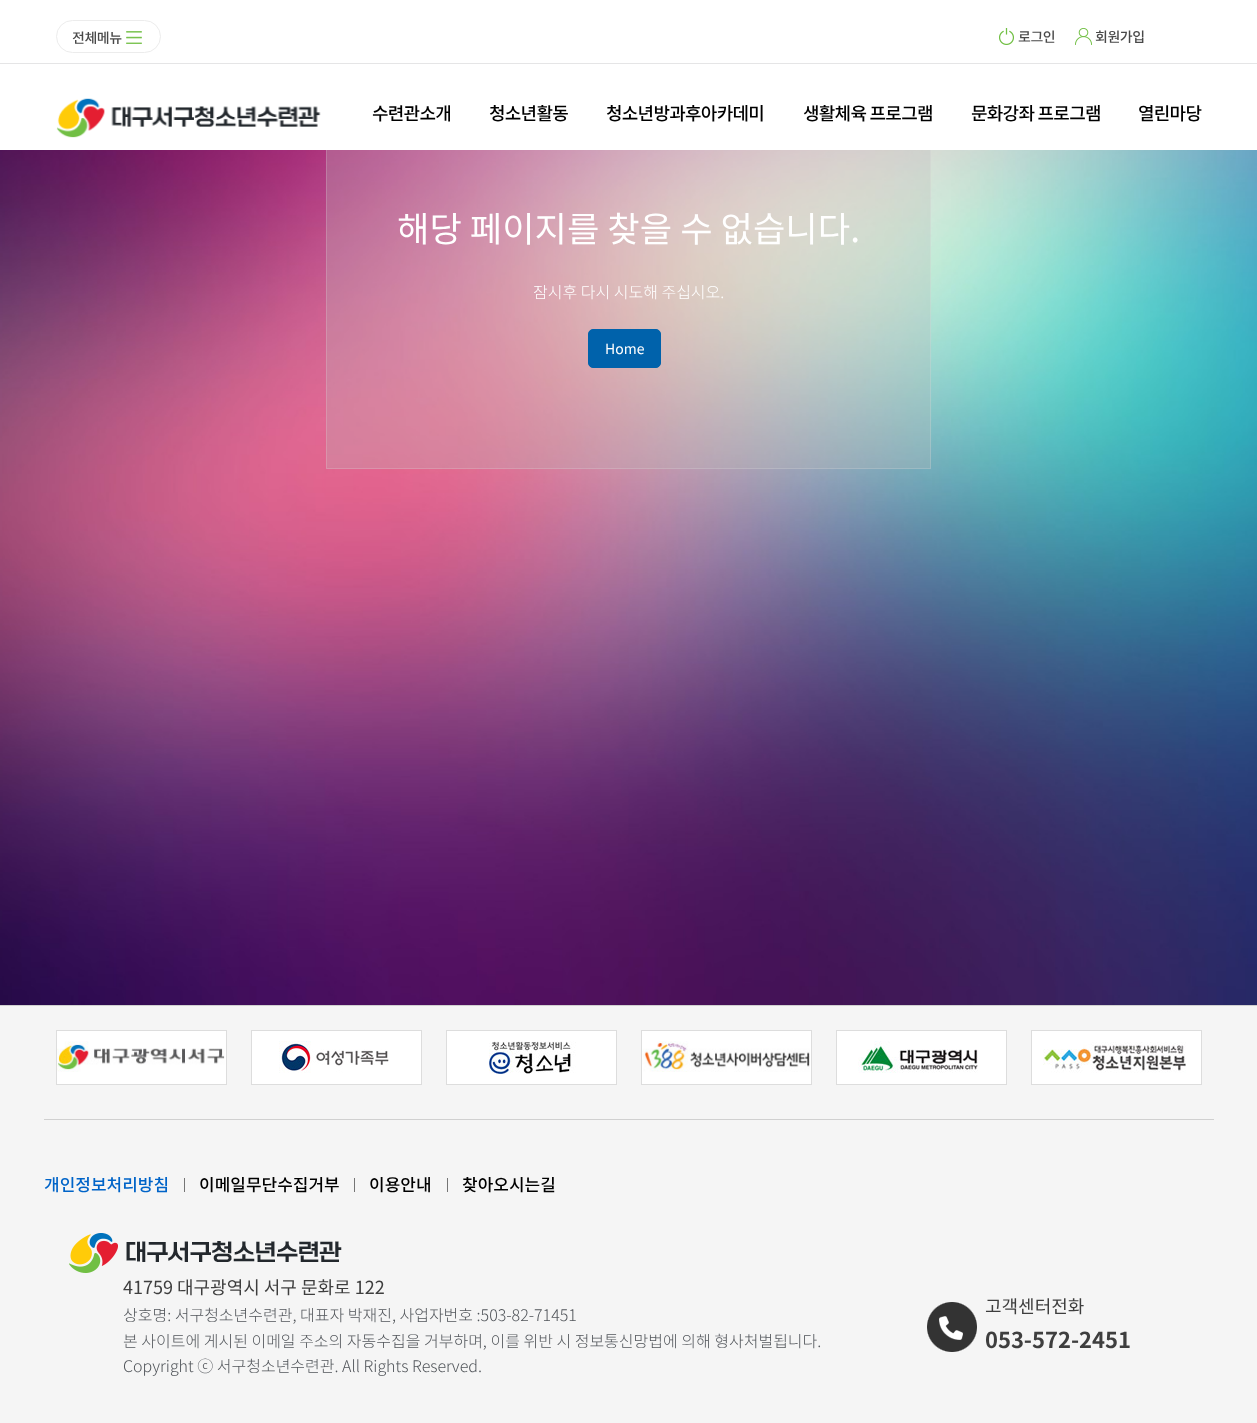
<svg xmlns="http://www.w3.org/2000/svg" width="1257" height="1423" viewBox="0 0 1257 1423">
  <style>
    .t1 { font: 500 14px Noto Sans KR; letter-spacing: -0.5px; fill: #494949; }
    .t2 { font: 500 18px Noto Sans KR; letter-spacing: -0.75px; fill: #000; }
    .t3 { font: 35.25px Noto Sans KR; fill: #fff; }
    .t4 { font: 300 16px Noto Sans KR; fill: #fff; }
    .t5 { font: 14px Noto Sans KR; fill: #fff; }
    .t6 { font: 500 17px Noto Sans KR; fill: #0064c8; }
    .t7 { font: 500 17px Noto Sans KR; fill: #000; }
    .t8 { font: 18px Noto Sans KR; fill: #3e3e3e; }
    .t9 { font: 300 16px Noto Sans KR; fill: #52565b; }
    .t10 { font: bold 22px Noto Sans KR; fill: #3e3e3e; }
  </style>
  <rect width="100%" height="100%" fill="#f5f5f5"/>
  <image x="0" y="150" width="1257" height="855" href="images/5.png"/>
  <rect x="326" y="150" width="605" height="319" fill="#bababa4a"/>
  <rect x="326.5" y="118.5" width="604" height="350" fill="none" stroke="#eaeaeb33"/>
  <rect x="0" y="0" width="1257" height="150" fill="#fff"/>
  <rect x="0" y="63" width="1257" height="1" fill="#e5e5e6"/>
  <rect x="56.5" y="20.5" width="104" height="32" rx="16" fill="none" stroke="#ececec"/>
  <text x="72" y="43" class="t1">전체메뉴</text>
  <image x="126" y="31" width="16" height="13" href="images/1.png"/>
  <image x="999" y="28" width="15" height="17" href="images/2.png"/>
  <text x="1018" y="42" class="t1">로그인</text>
  <image x="1075" y="28" width="17" height="17" href="images/3.png"/>
  <text x="1095" y="42" class="t1">회원가입</text>
  <image x="56" y="98" width="265" height="40" href="images/4.png"/>
  <text x="372" y="120" class="t2">수련관소개</text>
  <text x="489" y="120" class="t2">청소년활동</text>
  <text x="606" y="120" class="t2">청소년방과후아카데미</text>
  <text x="803" y="120" class="t2">생활체육 프로그램</text>
  <text x="971" y="120" class="t2">문화강좌 프로그램</text>
  <text x="1138" y="120" class="t2">열린마당</text>
  <text x="397" y="242" class="t3">해당 페이지를 찾을 수 없습니다.</text>
  <text x="533" y="298" class="t4">잠시후 다시 시도해 주십시오.</text>
  <rect x="588.5" y="329.5" width="72" height="38" rx="4.5" fill="#0062ab" stroke="#0062ab"/>
  <text x="605" y="354" class="t5">Home</text>
  <rect x="0" y="1005" width="1257" height="1" fill="#d0d0d0"/>
  <rect x="44" y="1119" width="1170" height="1" fill="#d0d0d0"/>
  <rect x="56.5" y="1030.5" width="170" height="54" fill="#fff" stroke="#ddd"/>
  <image x="57" y="1041" width="168" height="31" href="images/6.png"/>
  <rect x="251.5" y="1030.5" width="170" height="54" fill="#fff" stroke="#ddd"/>
  <image x="279" y="1041" width="110" height="32" href="images/7.png"/>
  <rect x="446.5" y="1030.5" width="170" height="54" fill="#fff" stroke="#ddd"/>
  <image x="489" y="1041" width="87" height="33" href="images/8.png"/>
  <rect x="641.5" y="1030.5" width="170" height="54" fill="#fff" stroke="#ddd"/>
  <image x="642" y="1041" width="168" height="31" href="images/9.png"/>
  <rect x="836.5" y="1030.5" width="170" height="54" fill="#fff" stroke="#ddd"/>
  <image x="858" y="1041" width="120" height="32" href="images/10.png"/>
  <rect x="1031.5" y="1030.5" width="170" height="54" fill="#fff" stroke="#ddd"/>
  <image x="1043" y="1042" width="143" height="31" href="images/11.png"/>
  <text x="44" y="1191" class="t6">개인정보처리방침</text>
  <rect x="184" y="1178" width="1" height="14" fill="#757575"/>
  <text x="199" y="1191" class="t7">이메일무단수집거부</text>
  <rect x="354" y="1178" width="1" height="14" fill="#757575"/>
  <text x="369" y="1191" class="t7">이용안내</text>
  <rect x="447" y="1178" width="1" height="14" fill="#757575"/>
  <text x="462" y="1191" class="t7">찾아오시는길</text>
  <image x="69" y="1233" width="273" height="40" href="images/12.png"/>
  <text x="123" y="1294" class="t8">41759 대구광역시 서구 문화로 122</text>
  <text x="123" y="1321" class="t9">상호명: 서구청소년수련관, 대표자 박재진, 사업자번호 :503-82-71451</text>
  <text x="123" y="1347" class="t9">본 사이트에 게시된 이메일 주소의 자동수집을 거부하며, 이를 위반 시 정보통신망법에 의해 형사처벌됩니다.</text>
  <text x="123" y="1372" class="t9">Copyright ⓒ 서구청소년수련관. All Rights Reserved.</text>
  <image x="927" y="1302" width="50" height="50" href="images/13.png"/>
  <text x="985" y="1313" class="t8">고객센터전화</text>
  <text x="985" y="1348" class="t10">053-572-2451</text>
</svg>
